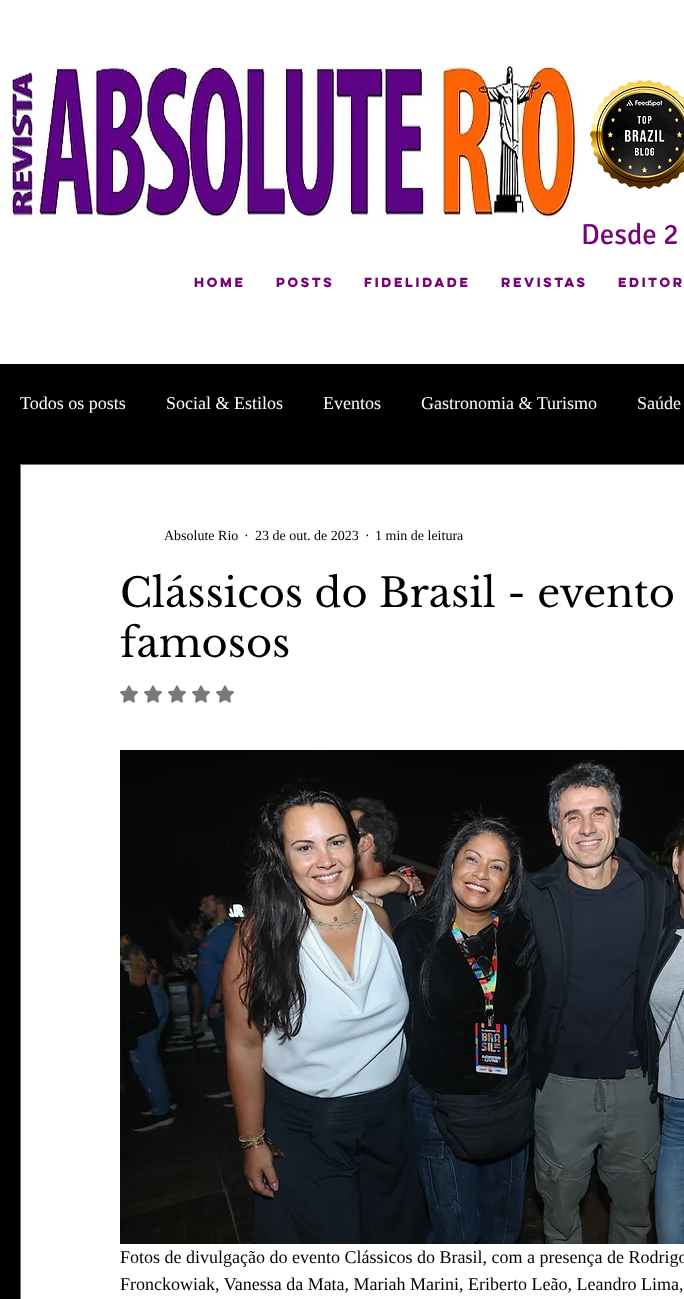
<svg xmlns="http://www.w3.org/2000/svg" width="684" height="1299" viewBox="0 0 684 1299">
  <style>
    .t1 { font: 29px Signika; fill: #760477; }
    .t2 { font: bold 12px 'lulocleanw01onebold'; fill: #760477; }
    .t3 { font: 18px Liberation Serif; fill: #fff; }
    .t4 { font: 14px Liberation Serif; fill: #000; }
    .t5 { font: 40px Libre Baskerville; fill: #000; }
    .t6 { font: 18px Liberation Serif; fill: #000; }
  </style>
  <rect width="100%" height="100%" fill="#fff"/>
  <image x="8" y="63" width="572" height="157" href="images/1.png"/>
  <image x="590" y="80" width="94" height="109" href="images/2.png"/>
  <text x="581" y="244" class="t1">Desde 2</text>
  <text x="194" y="287" class="t2">Home</text>
  <text x="276" y="287" class="t2">Posts</text>
  <text x="364" y="287" class="t2">Fidelidade</text>
  <text x="501" y="287" class="t2">Revistas</text>
  <text x="618" y="287" class="t2">Editor</text>
  <rect x="0" y="364" width="684" height="935" fill="#000"/>
  <text x="20" y="409" class="t3">Todos os posts</text>
  <text x="166" y="409" class="t3">Social &amp; Estilos</text>
  <text x="323" y="409" class="t3">Eventos</text>
  <text x="421" y="409" class="t3">Gastronomia &amp; Turismo</text>
  <text x="637" y="409" class="t3">Saúde</text>
  <rect x="20.5" y="464.5" width="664" height="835" fill="#fff" stroke="#747474"/>
  <text x="164" y="540" class="t4">Absolute Rio</text>
  <text x="244" y="540" class="t4">·</text>
  <text x="255" y="540" class="t4">23 de out. de 2023</text>
  <text x="365" y="540" class="t4">·</text>
  <text x="375" y="540" class="t4">1 min de leitura</text>
  <text x="120" y="607" class="t5">Clássicos do Brasil - evento</text>
  <text x="120" y="657" class="t5">famosos</text>
  <image x="120" y="685" width="18" height="18" href="images/3.png"/>
  <image x="144" y="685" width="18" height="18" href="images/3.png"/>
  <image x="168" y="685" width="18" height="18" href="images/3.png"/>
  <image x="192" y="685" width="18" height="18" href="images/3.png"/>
  <image x="216" y="685" width="18" height="18" href="images/3.png"/>
  <image x="120" y="750" width="564" height="494" href="images/4.png"/>
  <text x="120" y="1263" class="t6">Fotos de divulgação do evento Clássicos do Brasil, com a presença de Rodrigo</text>
  <text x="120" y="1290" class="t6">Fronckowiak, Vanessa da Mata, Mariah Marini, Eriberto Leão, Leandro Lima,</text>
</svg>
